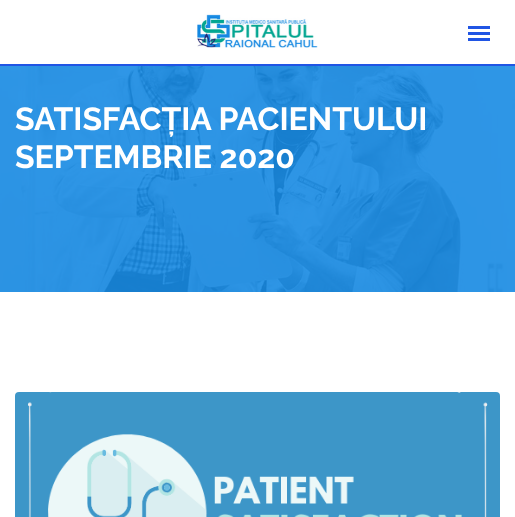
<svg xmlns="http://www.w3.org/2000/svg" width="515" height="517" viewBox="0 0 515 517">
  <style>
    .t1 { font: bold 32px Raleway; fill: #fff; }
  </style>
  <rect width="100%" height="100%" fill="#fff"/>
  <rect x="0" y="64" width="515" height="2" fill="#2055e4"/>
  <image x="197" y="14" width="121" height="34" href="images/1.png"/>
  <rect x="468" y="26" width="22" height="3" fill="#2055e4"/>
  <rect x="468" y="32" width="22" height="3" fill="#2055e4"/>
  <rect x="468" y="38" width="22" height="3" fill="#2055e4"/>
  <image x="0" y="66" width="515" height="226" href="images/2.png"/>
  <text x="15" y="130" class="t1">SATISFACȚIA PACIENTULUI</text>
  <text x="15" y="168" class="t1">SEPTEMBRIE 2020</text>
  <image x="15" y="392" width="485" height="125" href="images/3.png"/>
</svg>
